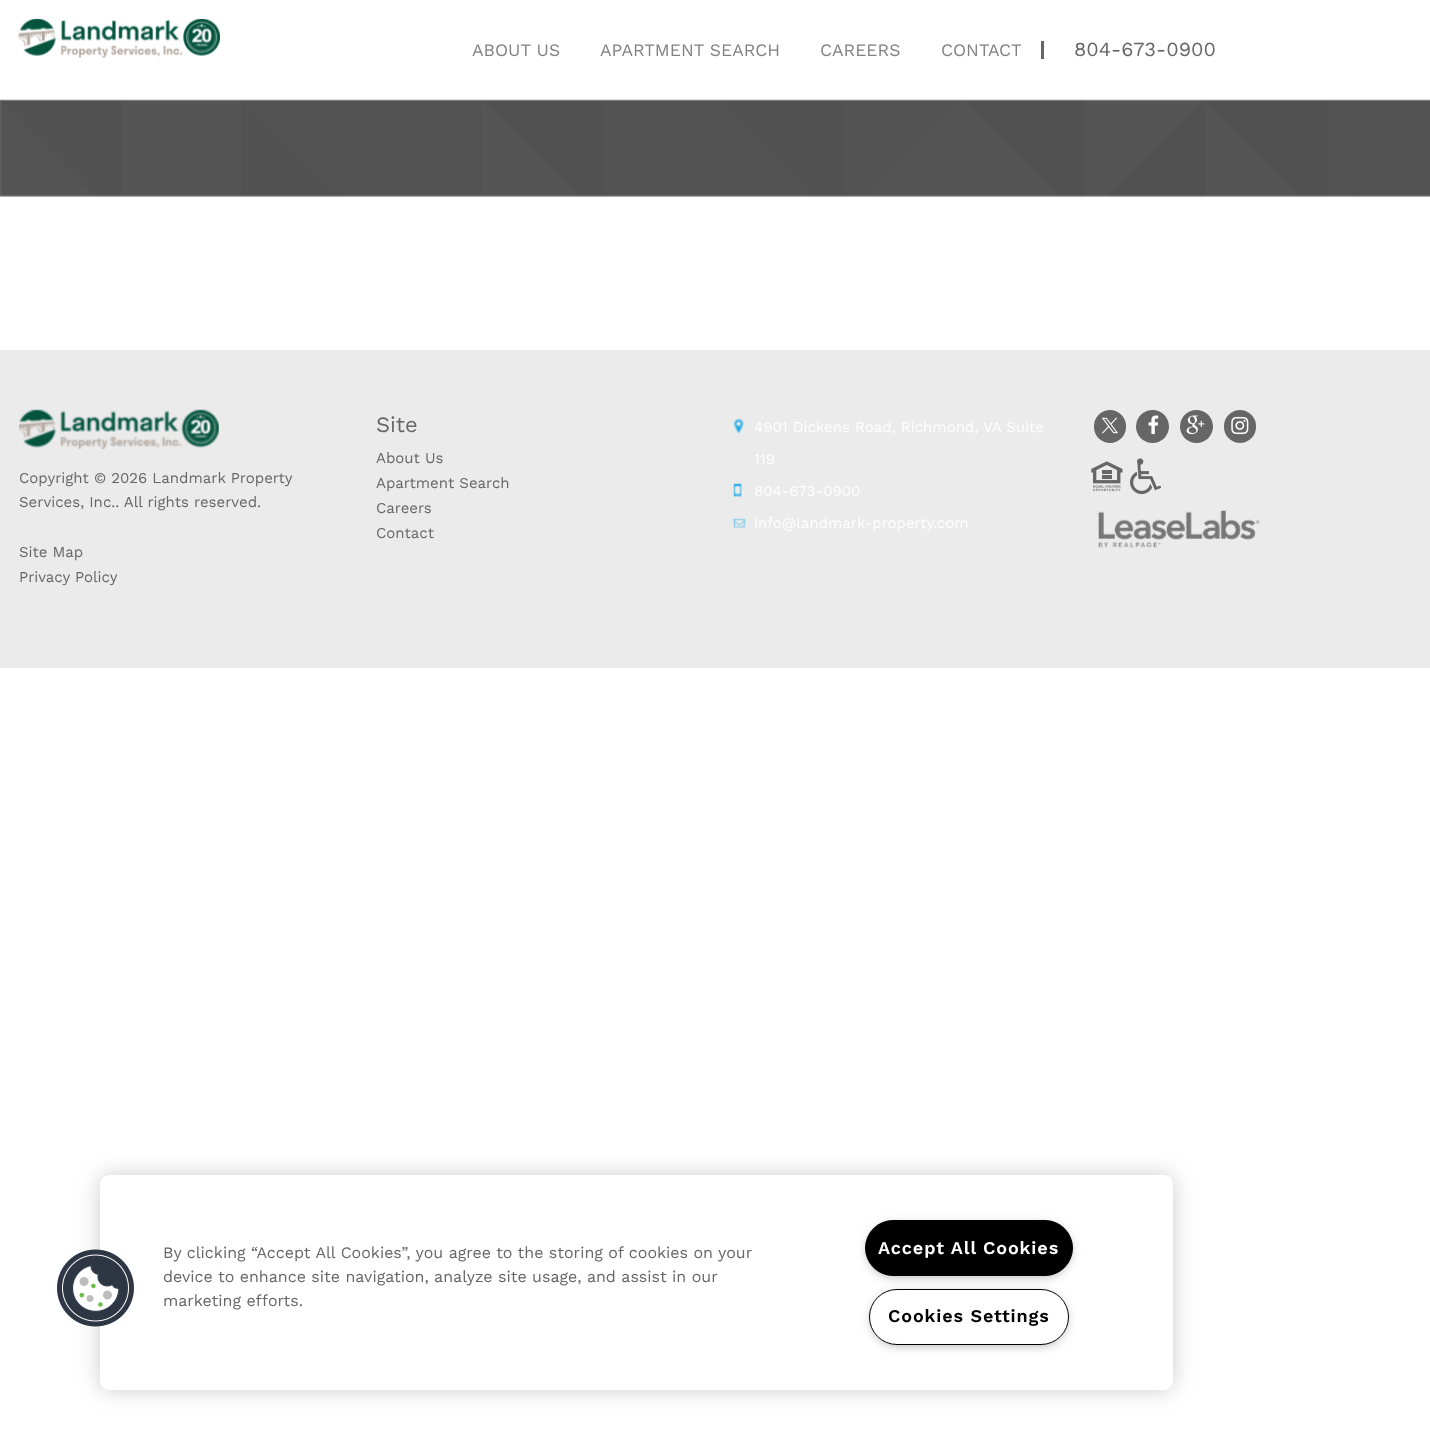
<svg xmlns="http://www.w3.org/2000/svg" width="1430" height="1430" viewBox="0 0 1430 1430">
  <style>
    .t1 { font: 17.5px Work Sans; fill: #808080; }
    .t2 { font: 20px Work Sans; fill: #666; }
    .t3 { font: 15px Work Sans; fill: #666; }
    .t4 { font: 22px Work Sans; fill: #666; }
    .t5 { font: 15px Work Sans; fill: #fff; }
    .t6 { font: 16px Work Sans; fill: #666; }
    .t7 { font: 600 18px Work Sans; letter-spacing: 0.9px; fill: #fff; }
    .t8 { font: 600 18px Work Sans; letter-spacing: 0.9px; fill: #000; }
  </style>
  <rect width="100%" height="100%" fill="#fff"/>
  <image x="18" y="19" width="202" height="39" href="images/1.png"/>
  <text x="472" y="56" class="t1">ABOUT US</text>
  <text x="600" y="56" class="t1">APARTMENT SEARCH</text>
  <text x="820" y="56" class="t1">CAREERS</text>
  <text x="941" y="56" class="t1">CONTACT</text>
  <rect x="1041" y="41" width="3" height="18" fill="#666"/>
  <text x="1074" y="56" class="t2">804-673-0900</text>
  <image x="0" y="99" width="1430" height="98" href="images/2.png"/>
  <rect x="0" y="350" width="1430" height="318" fill="#ebebeb"/>
  <image x="19" y="409" width="200" height="40" href="images/3.png"/>
  <text x="19" y="483" class="t3">Copyright © 2026 Landmark Property</text>
  <text x="19" y="507" class="t3">Services, Inc.. All rights reserved.</text>
  <text x="19" y="557" class="t3">Site Map</text>
  <text x="19" y="582" class="t3">Privacy Policy</text>
  <text x="376" y="432" class="t4">Site</text>
  <text x="376" y="463" class="t3">About Us</text>
  <text x="376" y="488" class="t3">Apartment Search</text>
  <text x="376" y="513" class="t3">Careers</text>
  <text x="376" y="538" class="t3">Contact</text>
  <image x="733" y="418" width="11" height="15" href="images/4.png"/>
  <text x="754" y="432" class="t5">4901 Dickens Road, Richmond, VA Suite</text>
  <text x="754" y="464" class="t5">119</text>
  <image x="733" y="483" width="9" height="14" href="images/5.png"/>
  <text x="754" y="496" class="t5">804-673-0900</text>
  <image x="733" y="518" width="13" height="10" href="images/6.png"/>
  <text x="754" y="528" class="t5">info@landmark-property.com</text>
  <rect x="1094" y="410" width="32" height="33" rx="16" fill="#666"/>
  <image x="1101" y="417" width="17" height="17" href="images/7.png"/>
  <circle cx="1152.5" cy="426.5" r="16.5" fill="#666"/>
  <image x="1148" y="415" width="11" height="20" href="images/8.png"/>
  <circle cx="1196.5" cy="426.5" r="16.5" fill="#666"/>
  <image x="1186" y="415" width="19" height="20" href="images/9.png"/>
  <rect x="1224" y="410" width="32" height="33" rx="16" fill="#666"/>
  <image x="1231" y="416" width="18" height="19" href="images/10.png"/>
  <image x="1091" y="461" width="32" height="31" href="images/11.png"/>
  <image x="1130" y="458" width="31" height="37" href="images/12.png"/>
  <image x="1098" y="510" width="162" height="38" href="images/13.png"/>
  <rect x="100" y="1175" width="1073" height="215" rx="9" fill="#00000033" filter="blur(11px)"/>
  <rect x="100" y="1175" width="1073" height="215" rx="9" fill="#fff"/>
  <image x="57" y="1249" width="77" height="78" href="images/14.png"/>
  <text x="163" y="1258" class="t6">By clicking “Accept All Cookies”, you agree to the storing of cookies on your</text>
  <text x="163" y="1282" class="t6">device to enhance site navigation, analyze site usage, and assist in our</text>
  <text x="163" y="1306" class="t6">marketing efforts.</text>
  <rect x="869" y="1226" width="200" height="49" rx="24.5" fill="#999" filter="blur(6px)"/>
  <rect x="865.5" y="1220.5" width="207" height="55" rx="27.5" fill="#000" stroke="#000"/>
  <text x="878" y="1254" class="t7">Accept All Cookies</text>
  <rect x="873" y="1295" width="192" height="49" rx="24.5" fill="#999" filter="blur(6px)"/>
  <rect x="869.5" y="1289.5" width="199" height="55" rx="27.5" fill="#fff" stroke="#000"/>
  <text x="888" y="1322" class="t8">Cookies Settings</text>
</svg>
